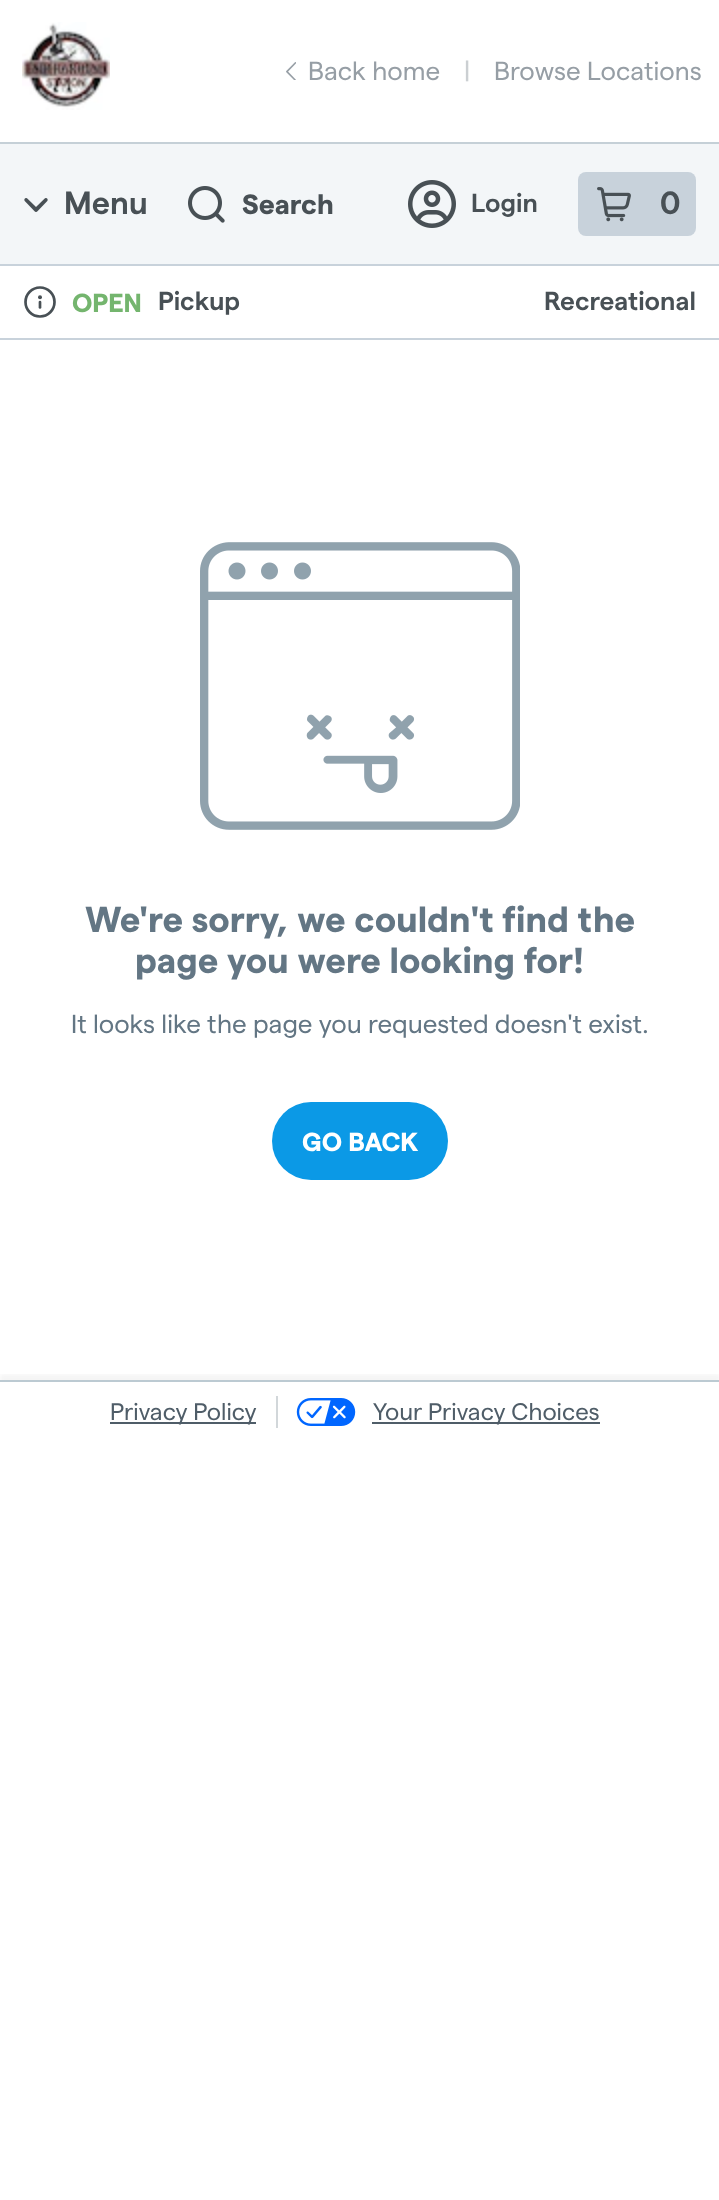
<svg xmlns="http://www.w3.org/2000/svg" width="719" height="2200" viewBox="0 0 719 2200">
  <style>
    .t1 { font: 26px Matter; fill: #969ea5; }
    .t2 { font: 26px Matter; fill: #cbcfd2; }
    .t3 { font: 600 32px Matter; fill: #485055; }
    .t4 { font: bold 28px Matter; fill: #485055; }
    .t5 { font: 600 26px Matter; fill: #485055; }
    .t6 { font: bold 26px Matter; fill: #74b56e; }
    .t7 { font: bold 36px Matter; fill: #637684; }
    .t8 { font: 26px Matter; fill: #637684; }
    .t9 { font: bold 26px Matter; fill: #fff; }
    .t10 { font: 24px Matter; fill: #4f5d68; }
  </style>
  <defs>
    <clipPath id="clip1"><rect x="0" y="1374" width="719" height="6"/></clipPath>
  </defs>
  <rect width="100%" height="100%" fill="#fff"/>
  <rect x="0" y="142" width="719" height="2" fill="#c5d0d7"/>
  <image x="22" y="22" width="88" height="88" href="images/1.png"/>
  <image x="286" y="62" width="10" height="18" href="images/2.png"/>
  <text x="308" y="80" class="t1">Back home</text>
  <text x="464" y="80" class="t2">|</text>
  <text x="494" y="80" class="t1">Browse Locations</text>
  <rect x="0" y="144" width="719" height="120" fill="#f3f6f8"/>
  <rect x="0" y="264" width="719" height="2" fill="#c8d2db"/>
  <image x="24" y="198" width="24" height="14" href="images/3.png"/>
  <text x="64" y="214" class="t3">Menu</text>
  <image x="188" y="186" width="37" height="37" href="images/4.png"/>
  <text x="242" y="214" class="t4">Search</text>
  <image x="408" y="180" width="48" height="48" href="images/5.png"/>
  <text x="471" y="212" class="t5">Login</text>
  <rect x="578" y="172" width="118" height="64" rx="8" fill="#c8d2db"/>
  <image x="597" y="187" width="34" height="35" href="images/6.png"/>
  <text x="660" y="214" class="t3">0</text>
  <rect x="0" y="338" width="719" height="2" fill="#c8d2db"/>
  <circle cx="40" cy="302" r="14.5" fill="none" stroke="#485055" stroke-width="2.7"/>
  <path d="M40 302V307.5" fill="none" stroke="#485055" stroke-width="2.7" stroke-linecap="round"/>
  <circle cx="40" cy="297.3" r="2" fill="#485055"/>
  <text x="72" y="312" class="t6">OPEN</text>
  <text x="158" y="310" class="t5">Pickup</text>
  <text x="544" y="310" class="t5">Recreational</text>
  <image x="200" y="542" width="320" height="288" href="images/7.png"/>
  <text x="85" y="932" class="t7">We're sorry, we couldn't find the</text>
  <text x="135" y="973" class="t7">page you were looking for!</text>
  <text x="71" y="1033" class="t8">It looks like the page you requested doesn't exist.</text>
  <rect x="272" y="1102" width="176" height="78" rx="39" fill="#0b99e6"/>
  <text x="302" y="1151" class="t9">GO BACK</text>
  <g clip-path="url(#clip1)">
    <rect x="0" y="1374" width="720" height="60" fill="#0000000a" filter="blur(2px)"/>
  </g>
  <rect x="0" y="1380" width="719" height="2" fill="#bccad2"/>
  <rect x="110" y="1422" width="146" height="2" fill="#4f5d68"/>
  <text x="110" y="1420" class="t10">Privacy Policy</text>
  <rect x="276" y="1396" width="2" height="32" fill="#d2d7da"/>
  <image x="296" y="1398" width="60" height="28" href="images/8.png"/>
  <rect x="372" y="1422" width="228" height="2" fill="#4f5d68"/>
  <text x="373" y="1420" class="t10">Your Privacy Choices</text>
</svg>
